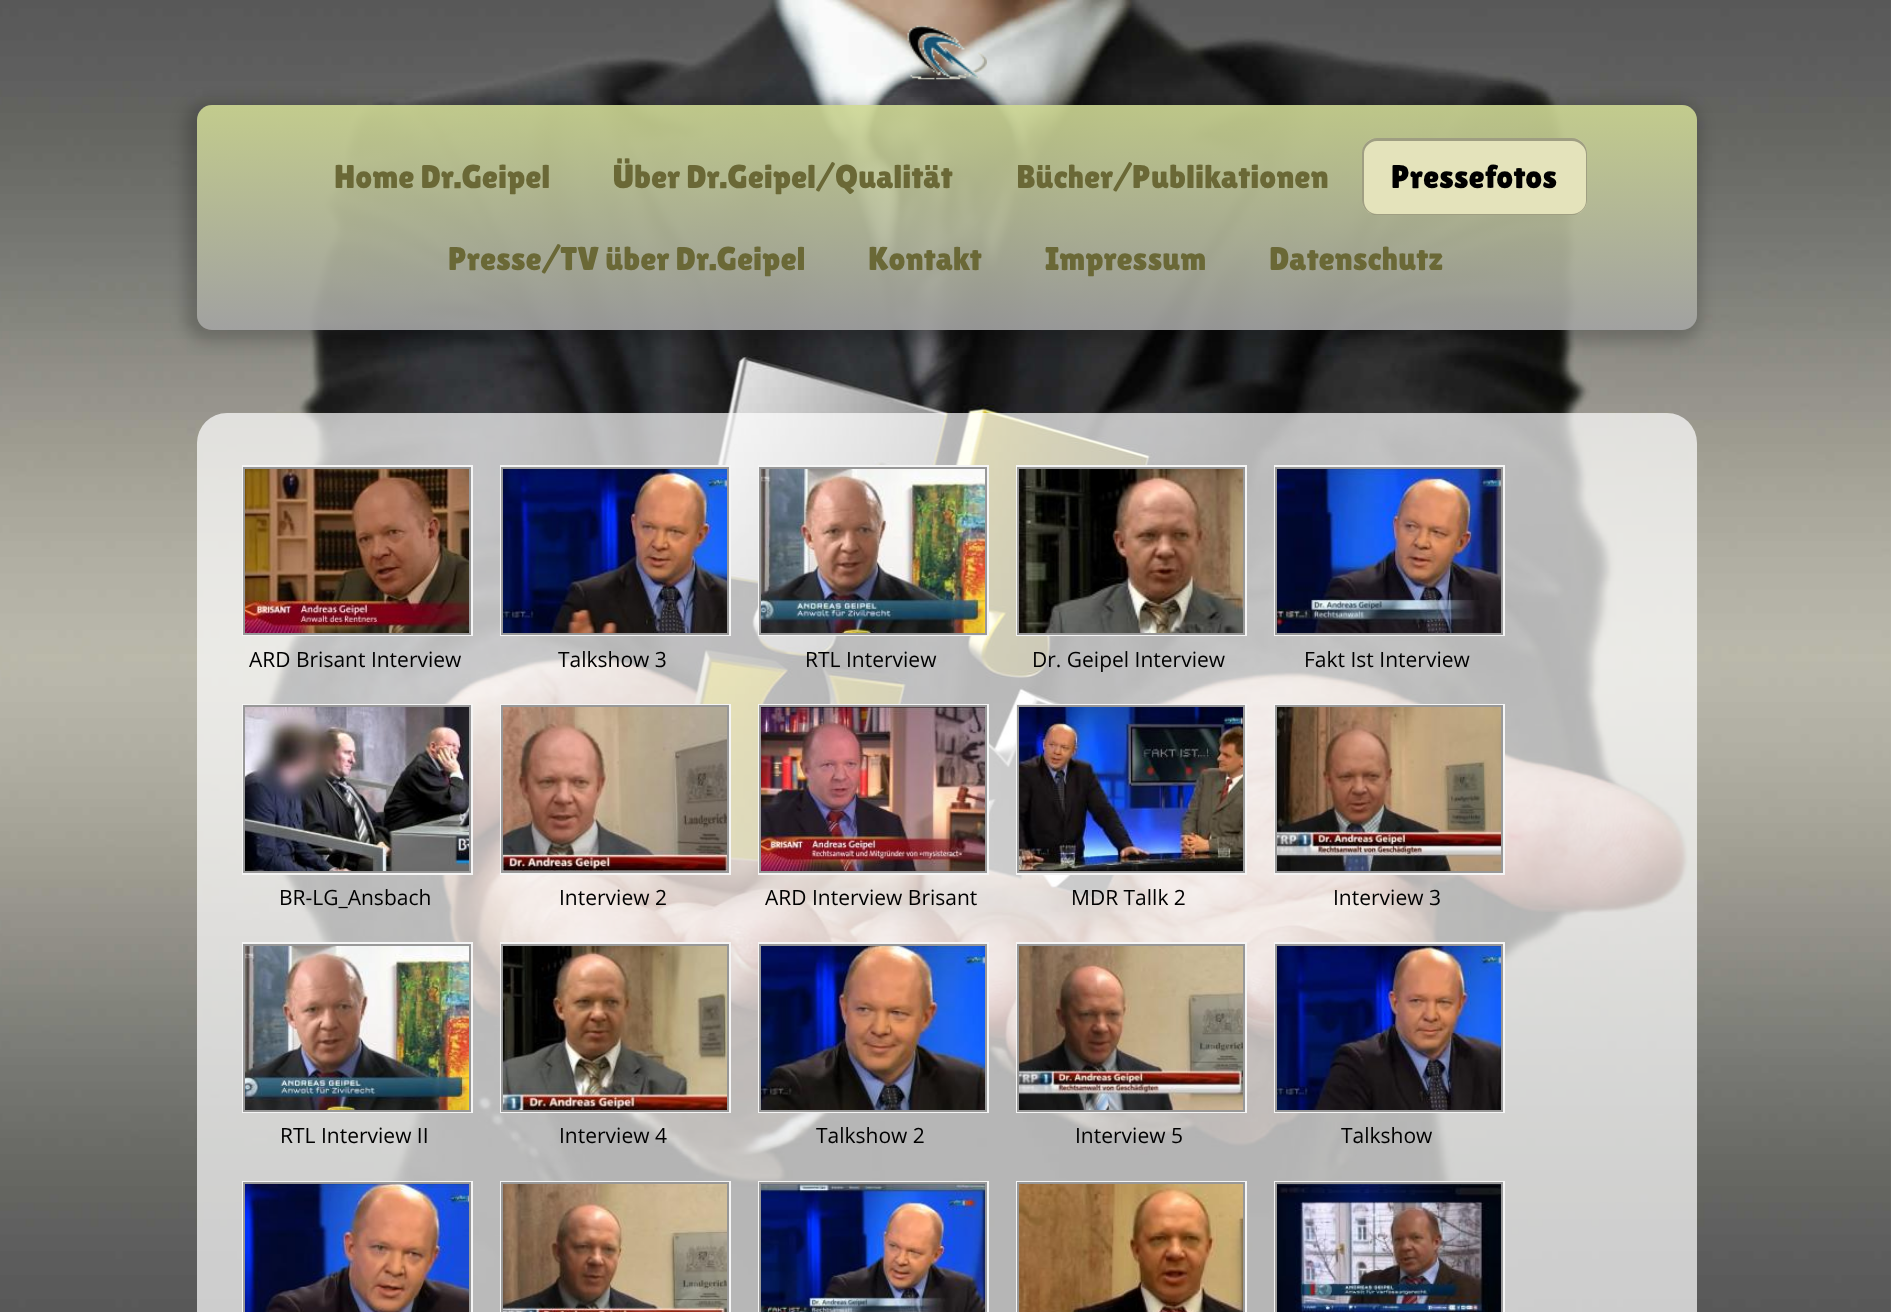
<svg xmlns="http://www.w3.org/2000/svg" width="1891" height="1312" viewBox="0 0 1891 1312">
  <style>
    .t1 { font: 33px Lilita One; fill: #6a6836; }
    .t2 { font: 33px Lilita One; fill: #000; }
    .t3 { font: 21px Open Sans; fill: #000; }
  </style>
  <defs>
    <clipPath id="clip1"><path d="M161 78H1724V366H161ZM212 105H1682C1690.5 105 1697 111.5 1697 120V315C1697 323.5 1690.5 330 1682 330H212C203.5 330 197 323.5 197 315V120C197 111.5 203.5 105 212 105Z" clip-rule="evenodd"/></clipPath>
    <linearGradient id="g1" gradientUnits="userSpaceOnUse" x1="947" y1="330" x2="947" y2="105"><stop offset="0" stop-color="#a4a4a4" stop-opacity="0.9"/><stop offset="1" stop-color="#cdd792" stop-opacity="0.9"/></linearGradient>
  </defs>
  <rect width="100%" height="100%" fill="#fff"/>
  <image x="0" y="0" width="1891" height="1312" href="images/1.png"/>
  <image x="907" y="25" width="80" height="55" href="images/2.png"/>
  <g clip-path="url(#clip1)">
    <rect x="185" y="102" width="1515" height="240" rx="23" fill="#00000033" filter="blur(7.5px)"/>
  </g>
  <rect x="197" y="105" width="1500" height="225" rx="15" fill="url(#g1)"/>
  <text x="334" y="188" class="t1">Home Dr.Geipel</text>
  <text x="613" y="188" class="t1">Über Dr.Geipel/Qualität</text>
  <text x="1016" y="188" class="t1">Bücher/Publikationen</text>
  <rect x="1362" y="138" width="225" height="77" rx="15" fill="#e4e3bb"/>
  <path d="M1377 138C1369 138 1362 145 1362 153V200C1362 208 1369 215 1377 215H1572C1580 215 1587 208 1587 200V153C1587 145 1580 138 1572 138ZM1377 141C1370 141 1364 147 1364 154V201C1364 208 1370 214 1377 214H1572C1579 214 1586 208 1586 201V154C1586 147 1579 141 1572 141Z" fill="#0000004d" fill-rule="evenodd"/>
  <text x="1391" y="188" class="t2">Pressefotos</text>
  <text x="448" y="270" class="t1">Presse/TV über Dr.Geipel</text>
  <text x="868" y="270" class="t1">Kontakt</text>
  <text x="1045" y="270" class="t1">Impressum</text>
  <text x="1269" y="270" class="t1">Datenschutz</text>
  <rect x="197" y="413" width="1500" height="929" rx="30" fill="#ffffffb3"/>
  <rect x="243" y="466" width="229" height="169" fill="none" stroke="#f5f5f5" stroke-width="2"/>
  <image x="245" y="469" width="224" height="164" href="images/3.png"/>
  <rect x="244" y="468" width="226" height="166" fill="none" stroke="#989898" stroke-width="2"/>
  <text x="249" y="667" class="t3">ARD Brisant Interview</text>
  <rect x="501" y="466" width="229" height="169" fill="none" stroke="#f5f5f5" stroke-width="2"/>
  <image x="503" y="469" width="224" height="164" href="images/4.png"/>
  <rect x="502" y="468" width="226" height="166" fill="none" stroke="#989898" stroke-width="2"/>
  <text x="558" y="667" class="t3">Talkshow 3</text>
  <rect x="759" y="466" width="229" height="169" fill="none" stroke="#f5f5f5" stroke-width="2"/>
  <image x="761" y="469" width="224" height="164" href="images/5.png"/>
  <rect x="760" y="468" width="226" height="166" fill="none" stroke="#989898" stroke-width="2"/>
  <text x="805" y="667" class="t3">RTL Interview</text>
  <rect x="1017" y="466" width="229" height="169" fill="none" stroke="#f5f5f5" stroke-width="2"/>
  <image x="1019" y="469" width="224" height="164" href="images/6.png"/>
  <rect x="1018" y="468" width="226" height="166" fill="none" stroke="#989898" stroke-width="2"/>
  <text x="1032" y="667" class="t3">Dr. Geipel Interview</text>
  <rect x="1275" y="466" width="229" height="169" fill="none" stroke="#f5f5f5" stroke-width="2"/>
  <image x="1277" y="469" width="224" height="164" href="images/7.png"/>
  <rect x="1276" y="468" width="226" height="166" fill="none" stroke="#989898" stroke-width="2"/>
  <text x="1304" y="667" class="t3">Fakt Ist Interview</text>
  <rect x="243" y="705" width="229" height="169" fill="none" stroke="#f5f5f5" stroke-width="2"/>
  <image x="245" y="707" width="224" height="164" href="images/8.png"/>
  <rect x="244" y="706" width="226" height="166" fill="none" stroke="#989898" stroke-width="2"/>
  <text x="279" y="905" class="t3">BR-LG_Ansbach</text>
  <rect x="501" y="705" width="229" height="169" fill="none" stroke="#f5f5f5" stroke-width="2"/>
  <image x="503" y="707" width="224" height="164" href="images/9.png"/>
  <rect x="502" y="706" width="226" height="166" fill="none" stroke="#989898" stroke-width="2"/>
  <text x="559" y="905" class="t3">Interview 2</text>
  <rect x="759" y="705" width="229" height="169" fill="none" stroke="#f5f5f5" stroke-width="2"/>
  <image x="761" y="707" width="224" height="164" href="images/10.png"/>
  <rect x="760" y="706" width="226" height="166" fill="none" stroke="#989898" stroke-width="2"/>
  <text x="765" y="905" class="t3">ARD Interview Brisant</text>
  <rect x="1017" y="705" width="229" height="169" fill="none" stroke="#f5f5f5" stroke-width="2"/>
  <image x="1019" y="707" width="224" height="164" href="images/11.png"/>
  <rect x="1018" y="706" width="226" height="166" fill="none" stroke="#989898" stroke-width="2"/>
  <text x="1071" y="905" class="t3">MDR Tallk 2</text>
  <rect x="1275" y="705" width="229" height="169" fill="none" stroke="#f5f5f5" stroke-width="2"/>
  <image x="1277" y="707" width="224" height="164" href="images/12.png"/>
  <rect x="1276" y="706" width="226" height="166" fill="none" stroke="#989898" stroke-width="2"/>
  <text x="1333" y="905" class="t3">Interview 3</text>
  <rect x="243" y="943" width="229" height="169" fill="none" stroke="#f5f5f5" stroke-width="2"/>
  <image x="245" y="946" width="224" height="164" href="images/13.png"/>
  <rect x="244" y="945" width="226" height="166" fill="none" stroke="#989898" stroke-width="2"/>
  <text x="280" y="1143" class="t3">RTL Interview II</text>
  <rect x="501" y="943" width="229" height="169" fill="none" stroke="#f5f5f5" stroke-width="2"/>
  <image x="503" y="946" width="224" height="164" href="images/14.png"/>
  <rect x="502" y="945" width="226" height="166" fill="none" stroke="#989898" stroke-width="2"/>
  <text x="559" y="1143" class="t3">Interview 4</text>
  <rect x="759" y="943" width="229" height="169" fill="none" stroke="#f5f5f5" stroke-width="2"/>
  <image x="761" y="946" width="224" height="164" href="images/15.png"/>
  <rect x="760" y="945" width="226" height="166" fill="none" stroke="#989898" stroke-width="2"/>
  <text x="816" y="1143" class="t3">Talkshow 2</text>
  <rect x="1017" y="943" width="229" height="169" fill="none" stroke="#f5f5f5" stroke-width="2"/>
  <image x="1019" y="946" width="224" height="164" href="images/16.png"/>
  <rect x="1018" y="945" width="226" height="166" fill="none" stroke="#989898" stroke-width="2"/>
  <text x="1075" y="1143" class="t3">Interview 5</text>
  <rect x="1275" y="943" width="229" height="169" fill="none" stroke="#f5f5f5" stroke-width="2"/>
  <image x="1277" y="946" width="224" height="164" href="images/17.png"/>
  <rect x="1276" y="945" width="226" height="166" fill="none" stroke="#989898" stroke-width="2"/>
  <text x="1341" y="1143" class="t3">Talkshow</text>
  <rect x="243" y="1182" width="229" height="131" fill="none" stroke="#f5f5f5" stroke-width="2"/>
  <image x="245" y="1184" width="224" height="128" href="images/18.png"/>
  <rect x="244" y="1183" width="226" height="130" fill="none" stroke="#989898" stroke-width="2"/>
  <rect x="501" y="1182" width="229" height="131" fill="none" stroke="#f5f5f5" stroke-width="2"/>
  <image x="503" y="1184" width="224" height="128" href="images/19.png"/>
  <rect x="502" y="1183" width="226" height="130" fill="none" stroke="#989898" stroke-width="2"/>
  <rect x="759" y="1182" width="229" height="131" fill="none" stroke="#f5f5f5" stroke-width="2"/>
  <image x="761" y="1184" width="224" height="128" href="images/20.png"/>
  <rect x="760" y="1183" width="226" height="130" fill="none" stroke="#989898" stroke-width="2"/>
  <rect x="1017" y="1182" width="229" height="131" fill="none" stroke="#f5f5f5" stroke-width="2"/>
  <image x="1019" y="1184" width="224" height="128" href="images/21.png"/>
  <rect x="1018" y="1183" width="226" height="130" fill="none" stroke="#989898" stroke-width="2"/>
  <rect x="1275" y="1182" width="229" height="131" fill="none" stroke="#f5f5f5" stroke-width="2"/>
  <image x="1277" y="1184" width="224" height="128" href="images/22.png"/>
  <rect x="1276" y="1183" width="226" height="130" fill="none" stroke="#989898" stroke-width="2"/>
</svg>
